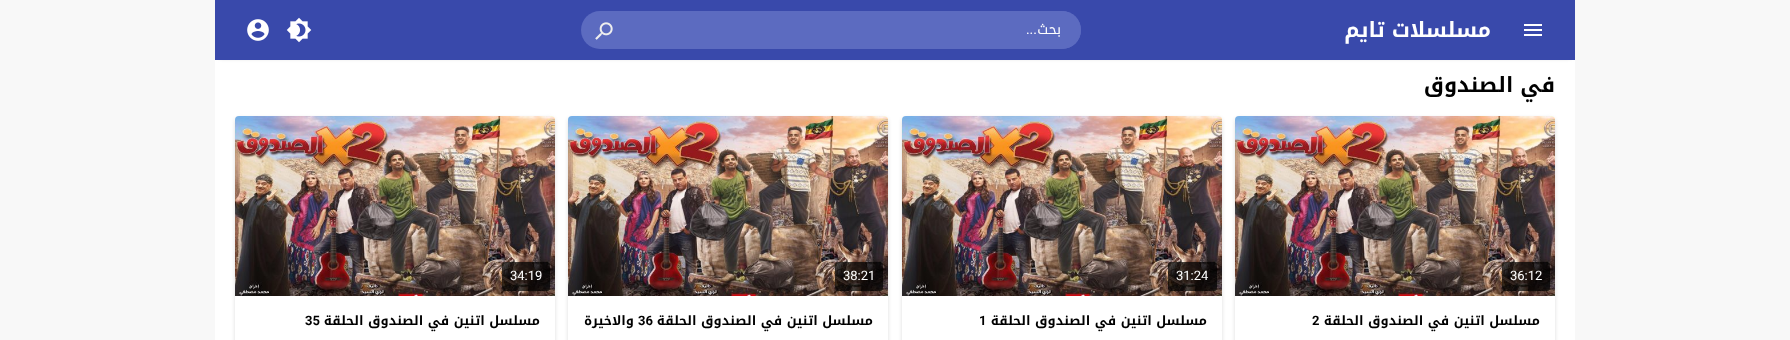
<svg xmlns="http://www.w3.org/2000/svg" width="1790" height="340" viewBox="0 0 1790 340">
  <style>
    .t1 { font: bold 21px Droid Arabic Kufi; direction: rtl; fill: #fff; }
    .t2 { font: 14px Droid Arabic Kufi; direction: rtl; fill: #fff; }
    .t3 { font: 14px Roboto; direction: rtl; fill: #fff; }
    .t4 { font: bold 21px Droid Arabic Kufi; direction: rtl; fill: #000; }
    .t5 { font: 13px Roboto; fill: #fff; }
    .t6 { font: bold 13px Droid Arabic Kufi; direction: rtl; fill: #000; }
    .t7 { font: bold 13px Roboto; fill: #000; }
  </style>
  <defs>
    <clipPath id="clip1"><path d="M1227 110H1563V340H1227ZM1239 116H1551C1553 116 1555 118 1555 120V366C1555 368 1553 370 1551 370H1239C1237 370 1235 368 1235 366V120C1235 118 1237 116 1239 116Z" clip-rule="evenodd"/></clipPath>
    <clipPath id="clip2"><path d="M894 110H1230V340H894ZM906 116H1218C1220 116 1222 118 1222 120V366C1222 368 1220 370 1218 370H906C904 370 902 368 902 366V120C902 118 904 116 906 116Z" clip-rule="evenodd"/></clipPath>
    <clipPath id="clip3"><path d="M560 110H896V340H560ZM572 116H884C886 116 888 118 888 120V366C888 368 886 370 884 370H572C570 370 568 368 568 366V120C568 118 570 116 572 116Z" clip-rule="evenodd"/></clipPath>
    <clipPath id="clip4"><path d="M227 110H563V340H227ZM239 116H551C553 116 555 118 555 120V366C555 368 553 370 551 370H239C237 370 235 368 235 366V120C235 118 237 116 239 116Z" clip-rule="evenodd"/></clipPath>
  </defs>
  <rect width="100%" height="100%" fill="#f8f8f8"/>
  <rect x="215" y="60" width="1360" height="280" fill="#fff"/>
  <rect x="220" y="7" width="1350" height="50" fill="#999" filter="blur(2.5px)"/>
  <rect x="215" y="0" width="1360" height="60" fill="#3949ab"/>
  <image x="1524" y="24" width="18" height="12" href="images/1.png"/>
  <text x="1491" y="37" class="t1">مسلسلات تايم</text>
  <rect x="581" y="11" width="500" height="38" rx="19" fill="#5c6bc0"/>
  <path d="M631 11H1062C1072.5 11 1081 19.5 1081 30C1081 40.5 1072.5 49 1062 49H631Z" fill="#5c6bc0"/>
  <text x="1061" y="34" class="t2">بحث</text>
  <text x="1037" y="34" class="t3">...</text>
  <image x="595" y="22" width="18" height="18" href="images/2.png"/>
  <image x="286" y="17" width="26" height="26" href="images/3.png"/>
  <image x="247" y="19" width="22" height="22" href="images/4.png"/>
  <text x="1555" y="92" class="t4">في الصندوق</text>
  <g clip-path="url(#clip1)">
    <rect x="1236" y="119" width="318" height="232" rx="3" fill="#ccc" filter="blur(2.5px)"/>
  </g>
  <image x="1235" y="116" width="320" height="180" href="images/5.png"/>
  <rect x="1502" y="262" width="48" height="29" rx="3" fill="#000000b3"/>
  <text x="1510" y="280" class="t5">36:12</text>
  <text x="1540" y="325" class="t6">مسلسل اتنين في الصندوق الحلقة</text>
  <text x="1312" y="325" class="t7">2</text>
  <g clip-path="url(#clip2)">
    <rect x="903" y="119" width="318" height="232" rx="3" fill="#ccc" filter="blur(2.5px)"/>
  </g>
  <image x="902" y="116" width="320" height="180" href="images/5.png"/>
  <rect x="1168" y="262" width="49" height="29" rx="3" fill="#000000b3"/>
  <text x="1176" y="280" class="t5">31:24</text>
  <text x="1207" y="325" class="t6">مسلسل اتنين في الصندوق الحلقة</text>
  <text x="979" y="325" class="t7">1</text>
  <g clip-path="url(#clip3)">
    <rect x="569" y="119" width="318" height="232" rx="3" fill="#ccc" filter="blur(2.5px)"/>
  </g>
  <image x="568" y="116" width="320" height="180" href="images/5.png"/>
  <rect x="835" y="262" width="48" height="29" rx="3" fill="#000000b3"/>
  <text x="843" y="280" class="t5">38:21</text>
  <text x="873" y="325" class="t6">مسلسل اتنين في الصندوق الحلقة</text>
  <text x="638" y="325" class="t7">36</text>
  <text x="634" y="325" class="t6">والاخيرة</text>
  <g clip-path="url(#clip4)">
    <rect x="236" y="119" width="318" height="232" rx="3" fill="#ccc" filter="blur(2.5px)"/>
  </g>
  <image x="235" y="116" width="320" height="180" href="images/5.png"/>
  <rect x="502" y="262" width="48" height="29" rx="3" fill="#000000b3"/>
  <text x="510" y="280" class="t5">34:19</text>
  <text x="540" y="325" class="t6">مسلسل اتنين في الصندوق الحلقة</text>
  <text x="305" y="325" class="t7">35</text>
</svg>
